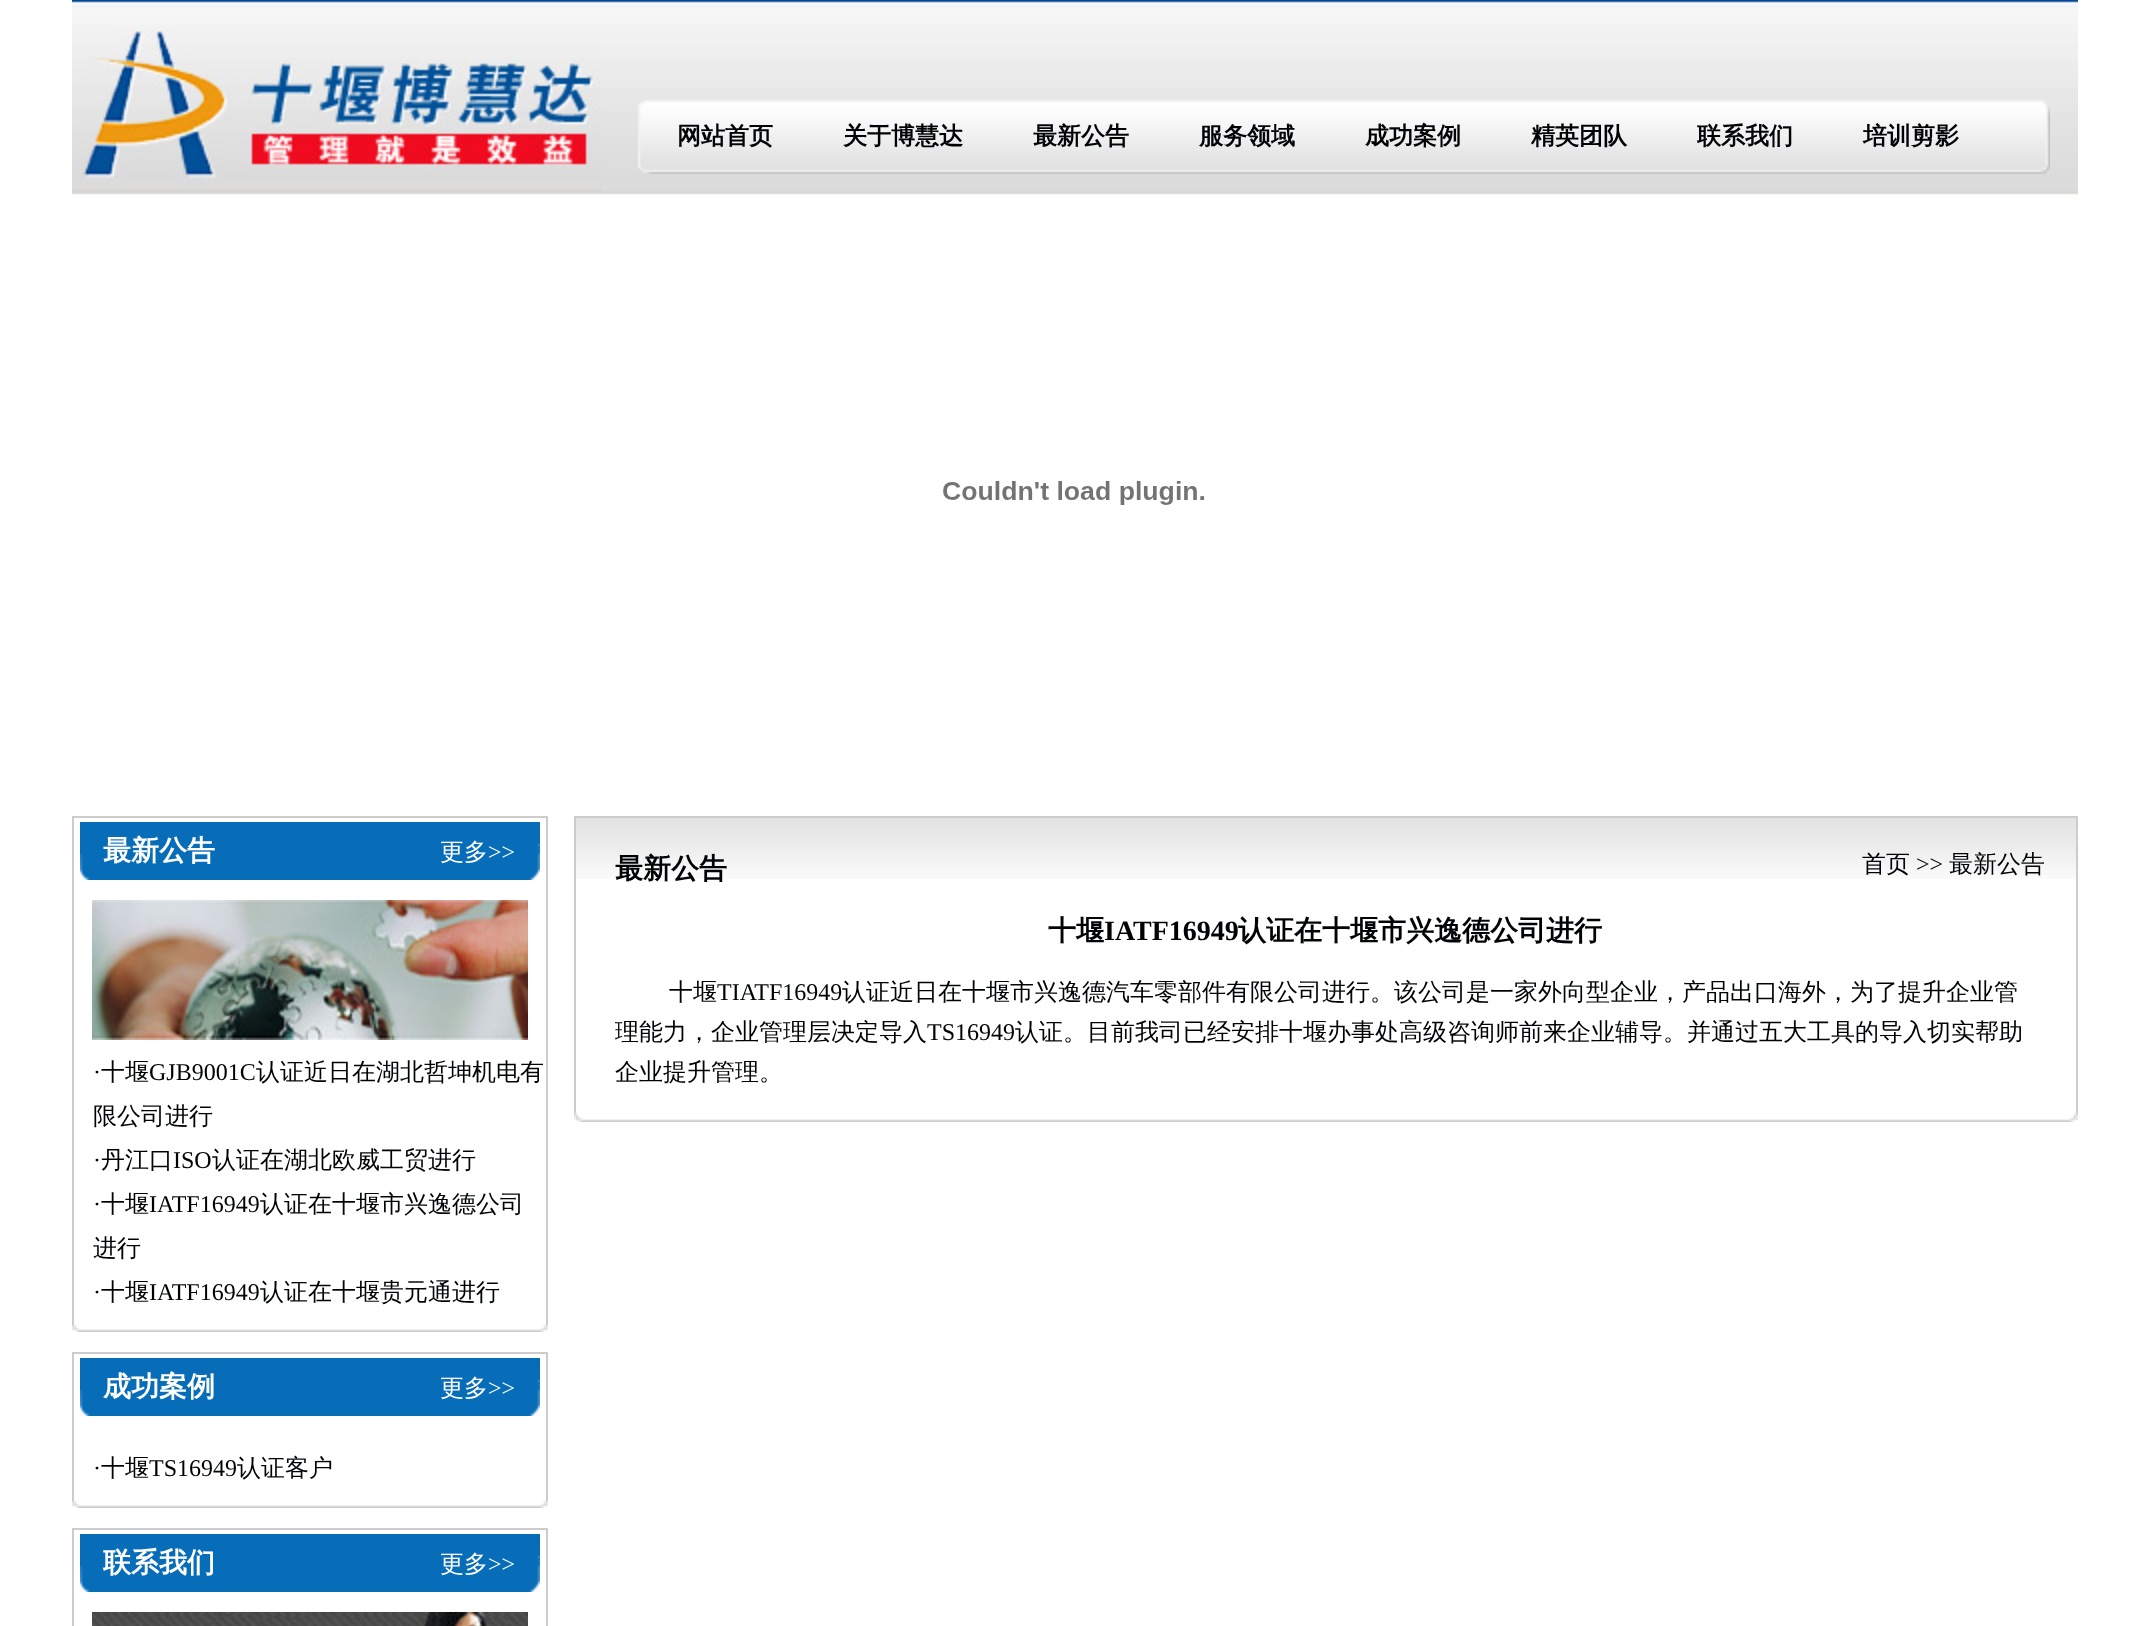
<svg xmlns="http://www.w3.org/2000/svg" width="2148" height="1626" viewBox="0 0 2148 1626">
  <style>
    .t1 { font: bold 24px WenQuanYi Zen Hei; fill: #000305; }
    .t2 { font: bold 28px WenQuanYi Zen Hei; fill: #fff; }
    .t3 { font: 500 24px WenQuanYi Zen Hei; fill: #fff; }
    .t4 { font: 24px Liberation Serif; fill: #fff; }
    .t5 { font: 24px Liberation Serif; fill: #000305; }
    .t6 { font: 500 24px WenQuanYi Zen Hei; fill: #000305; }
    .t7 { font: bold 28px WenQuanYi Zen Hei; fill: #000305; }
    .t8 { font: bold 28px Liberation Serif; fill: #000305; }
  </style>
  <rect width="100%" height="100%" fill="#fff"/>
  <image x="72" y="0" width="2006" height="195" href="images/1.png"/>
  <image x="72" y="26" width="530" height="166" href="images/2.png"/>
  <image x="638" y="100" width="1412" height="74" href="images/3.png"/>
  <text x="677" y="144" class="t1">网站首页</text>
  <text x="843" y="144" class="t1">关于博慧达</text>
  <text x="1033" y="144" class="t1">最新公告</text>
  <text x="1199" y="144" class="t1">服务领域</text>
  <text x="1365" y="144" class="t1">成功案例</text>
  <text x="1531" y="144" class="t1">精英团队</text>
  <text x="1697" y="144" class="t1">联系我们</text>
  <text x="1863" y="144" class="t1">培训剪影</text>
  <image x="943" y="481" width="262" height="24" href="images/4.png"/>
  <image x="80" y="822" width="460" height="58" href="images/5.png"/>
  <rect x="72" y="816" width="476" height="2" fill="#ccc"/>
  <rect x="546" y="816" width="2" height="64" fill="#ccc"/>
  <rect x="72" y="816" width="2" height="64" fill="#ccc"/>
  <text x="103" y="860" class="t2">最新公告</text>
  <text x="440" y="860" class="t3">更多</text>
  <text x="488" y="860" class="t4">&gt;&gt;</text>
  <rect x="546" y="880" width="2" height="444" fill="#ccc"/>
  <rect x="72" y="880" width="2" height="444" fill="#ccc"/>
  <image x="92" y="900" width="436" height="140" href="images/6.png"/>
  <text x="93" y="1080" class="t5">·</text>
  <text x="101" y="1080" class="t6">十堰</text>
  <text x="149" y="1080" class="t5">GJB9001C</text>
  <text x="256" y="1080" class="t6">认证近日在湖北哲坤机电有</text>
  <text x="93" y="1124" class="t6">限公司进行</text>
  <text x="93" y="1168" class="t5">·</text>
  <text x="101" y="1168" class="t6">丹江口</text>
  <text x="173" y="1168" class="t5">ISO</text>
  <text x="212" y="1168" class="t6">认证在湖北欧威工贸进行</text>
  <text x="93" y="1212" class="t5">·</text>
  <text x="101" y="1212" class="t6">十堰</text>
  <text x="149" y="1212" class="t5">IATF16949</text>
  <text x="260" y="1212" class="t6">认证在十堰市兴逸德公司</text>
  <text x="93" y="1256" class="t6">进行</text>
  <text x="93" y="1300" class="t5">·</text>
  <text x="101" y="1300" class="t6">十堰</text>
  <text x="149" y="1300" class="t5">IATF16949</text>
  <text x="260" y="1300" class="t6">认证在十堰贵元通进行</text>
  <image x="72" y="1324" width="476" height="8" href="images/7.png"/>
  <image x="80" y="1358" width="460" height="58" href="images/5.png"/>
  <rect x="72" y="1352" width="476" height="2" fill="#ccc"/>
  <rect x="546" y="1352" width="2" height="64" fill="#ccc"/>
  <rect x="72" y="1352" width="2" height="64" fill="#ccc"/>
  <text x="103" y="1396" class="t2">成功案例</text>
  <text x="440" y="1396" class="t3">更多</text>
  <text x="488" y="1396" class="t4">&gt;&gt;</text>
  <rect x="546" y="1416" width="2" height="84" fill="#ccc"/>
  <rect x="72" y="1416" width="2" height="84" fill="#ccc"/>
  <text x="93" y="1476" class="t5">·</text>
  <text x="101" y="1476" class="t6">十堰</text>
  <text x="149" y="1476" class="t5">TS16949</text>
  <text x="237" y="1476" class="t6">认证客户</text>
  <image x="72" y="1500" width="476" height="8" href="images/7.png"/>
  <image x="80" y="1534" width="460" height="58" href="images/5.png"/>
  <rect x="72" y="1528" width="476" height="2" fill="#ccc"/>
  <rect x="546" y="1528" width="2" height="64" fill="#ccc"/>
  <rect x="72" y="1528" width="2" height="64" fill="#ccc"/>
  <text x="103" y="1572" class="t2">联系我们</text>
  <text x="440" y="1572" class="t3">更多</text>
  <text x="488" y="1572" class="t4">&gt;&gt;</text>
  <rect x="546" y="1592" width="2" height="34" fill="#ccc"/>
  <rect x="72" y="1592" width="2" height="34" fill="#ccc"/>
  <image x="92" y="1612" width="436" height="14" href="images/8.png"/>
  <image x="576" y="818" width="1500" height="61" href="images/9.png"/>
  <rect x="574" y="816" width="1504" height="2" fill="#ccc"/>
  <rect x="2076" y="816" width="2" height="76" fill="#ccc"/>
  <rect x="574" y="816" width="2" height="76" fill="#ccc"/>
  <text x="615" y="878" class="t7">最新公告</text>
  <text x="1862" y="872" class="t6">首页</text>
  <text x="1916" y="872" class="t5">&gt;&gt;</text>
  <text x="1949" y="872" class="t6">最新公告</text>
  <rect x="2076" y="892" width="2" height="220" fill="#ccc"/>
  <rect x="574" y="892" width="2" height="220" fill="#ccc"/>
  <text x="1048" y="940" class="t7">十堰</text>
  <text x="1104" y="940" class="t8">IATF16949</text>
  <text x="1238" y="940" class="t7">认证在十堰市兴逸德公司进行</text>
  <text x="669" y="1000" class="t6">十堰</text>
  <text x="717" y="1000" class="t5">TIATF16949</text>
  <text x="842" y="1000" class="t6">认证近日在十堰市兴逸德汽车零部件有限公司进行。该公司是一家外向型企业，产品出口海外，为了提升企业管</text>
  <text x="615" y="1040" class="t6">理能力，企业管理层决定导入</text>
  <text x="927" y="1040" class="t5">TS16949</text>
  <text x="1015" y="1040" class="t6">认证。目前我司已经安排十堰办事处高级咨询师前来企业辅导。并通过五大工具的导入切实帮助</text>
  <text x="615" y="1080" class="t6">企业提升管理。</text>
  <image x="574" y="1112" width="1504" height="10" href="images/10.png"/>
</svg>
